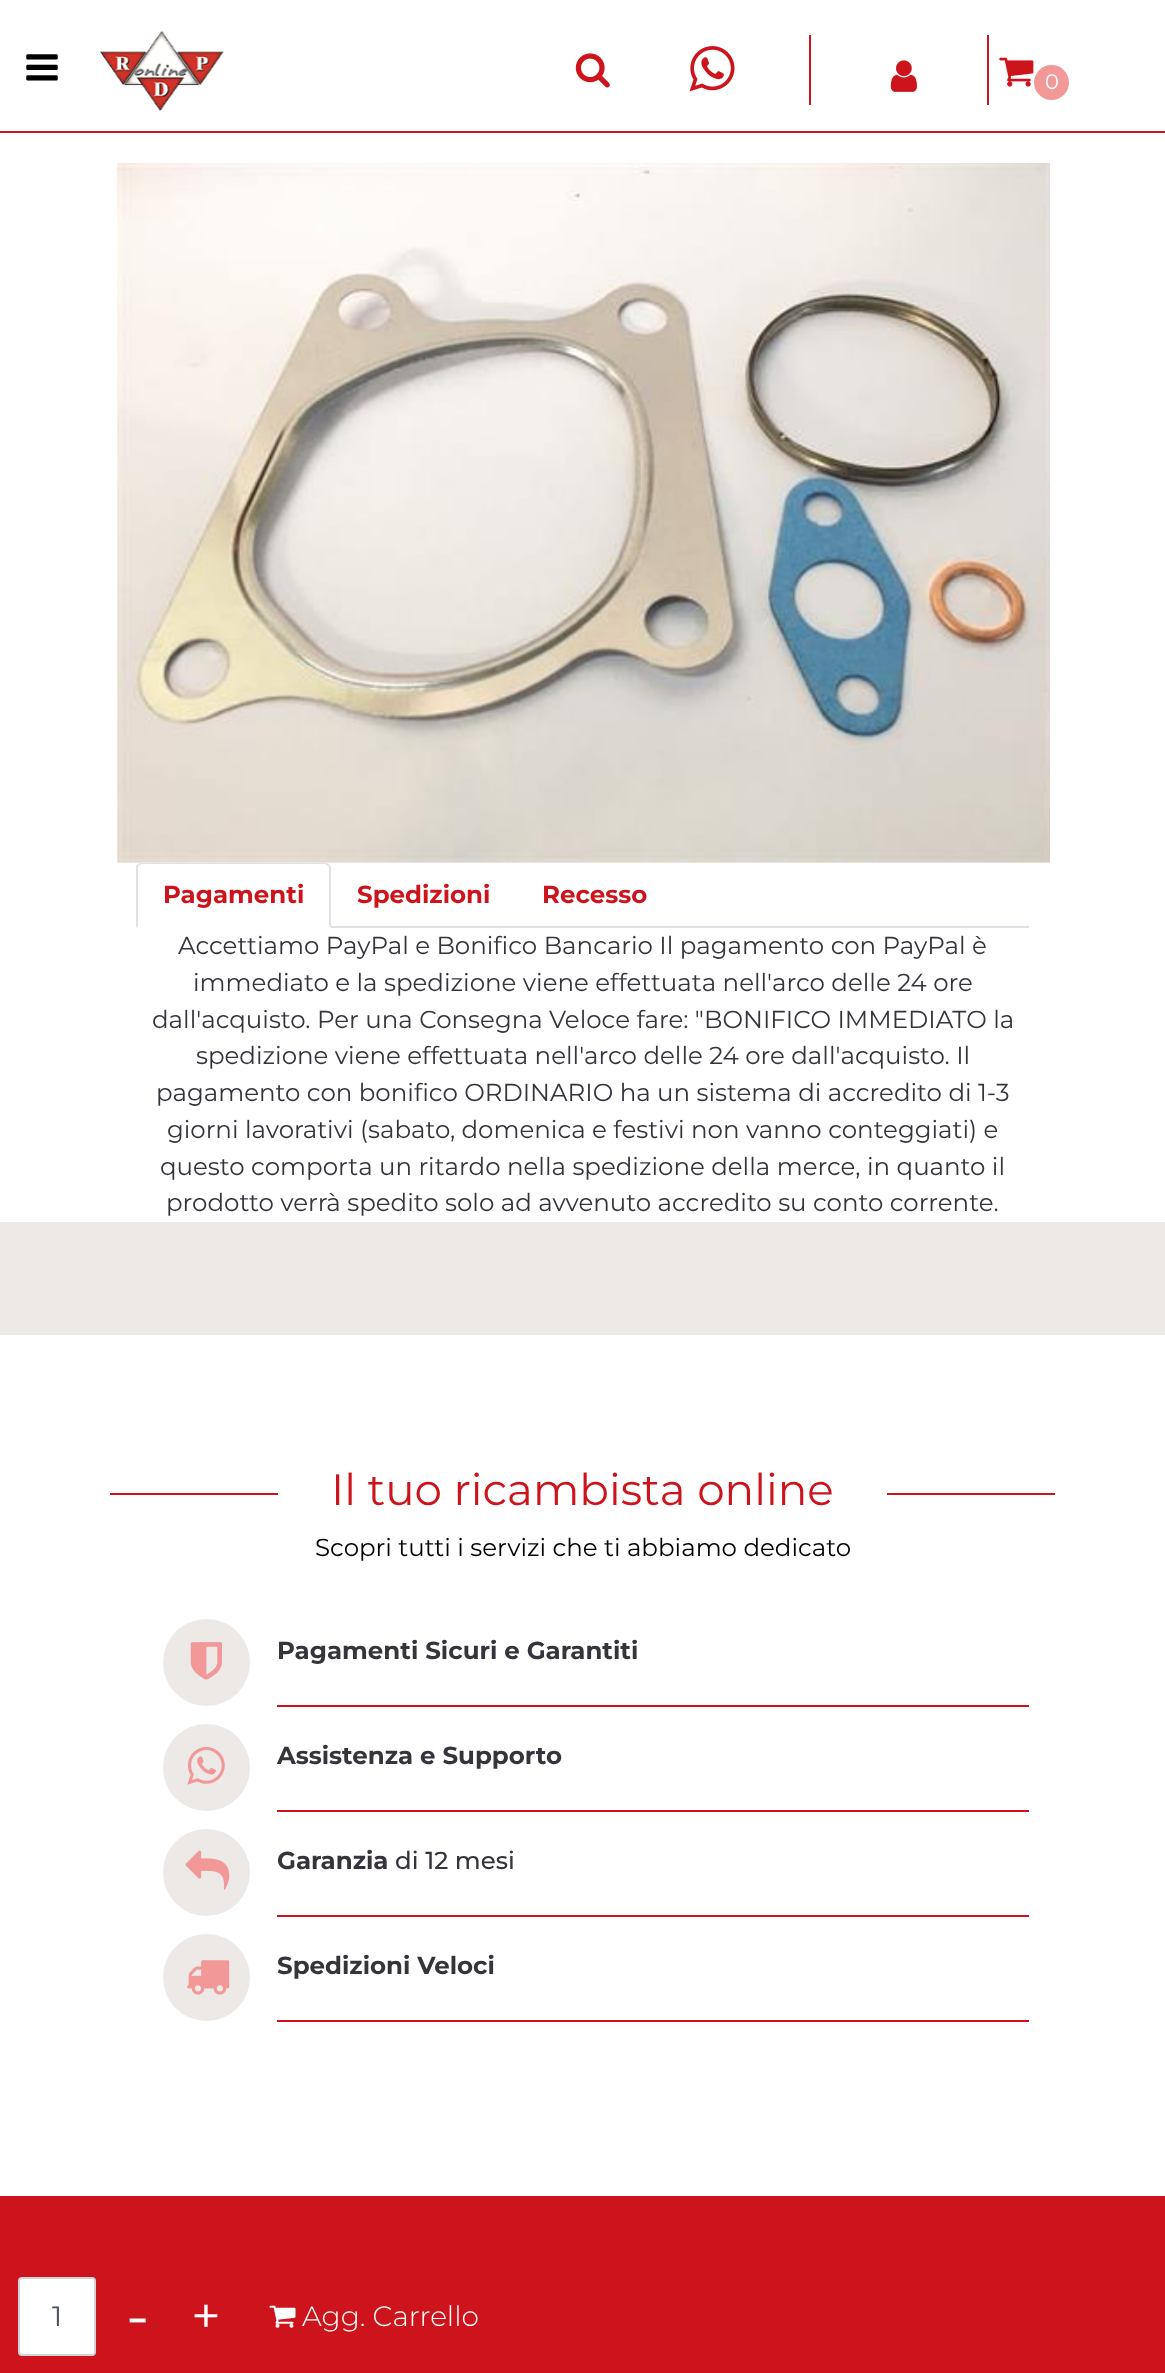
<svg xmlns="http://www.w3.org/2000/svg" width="1165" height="2373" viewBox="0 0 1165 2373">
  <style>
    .t1 { font: 21px Montserrat; fill: #fff; }
    .t2 { font: bold 24.5px Montserrat; fill: #cd141c; }
    .t3 { font: 24.5px Montserrat; fill: #36333c; }
    .t4 { font: 28px Montserrat; fill: #495057; }
    .t5 { font: 61px Montserrat; fill: #fff; }
    .t6 { font: 52px Montserrat; fill: #fff; }
    .t7 { font: 300 28px Montserrat; fill: #fff; }
    .t8 { font: 43.75px Montserrat; fill: #cd141c; }
    .t9 { font: 24.5px Montserrat; fill: #000; }
    .t10 { font: bold 24.5px Montserrat; fill: #36333c; }
    .t11 { font: 500 24.5px Montserrat; fill: #36333c; }
  </style>
  <rect width="100%" height="100%" fill="#ede9e6"/>
  <rect x="0" y="0" width="1165" height="131" fill="#fff"/>
  <rect x="0" y="131" width="1165" height="2" fill="#cd141c"/>
  <image x="26" y="54" width="32" height="27" href="images/1.png"/>
  <image x="100" y="31" width="124" height="80" href="images/2.png"/>
  <image x="575" y="53" width="35" height="35" href="images/3.png"/>
  <image x="689" y="46" width="46" height="46" href="images/4.png"/>
  <rect x="987" y="35" width="2" height="70" fill="#cd141c"/>
  <rect x="809" y="35" width="2" height="70" fill="#cd141c"/>
  <image x="890" y="60" width="27" height="32" href="images/5.png"/>
  <image x="999" y="57" width="35" height="30" href="images/6.png"/>
  <circle cx="1051.5" cy="82.5" r="17.5" fill="#f29898"/>
  <text x="1045" y="89" class="t1">0</text>
  <rect x="0" y="133" width="1165" height="1089" fill="#fff"/>
  <image x="117" y="163" width="933" height="700" href="images/7.png"/>
  <rect x="331" y="926" width="698" height="2" fill="#dee2e6"/>
  <path d="M143 863C141 863 139 863 138 864L139 866C140 864 142 864 143 864H325L328 866L329 864C328 863 326 863 325 863Z" fill="#dee2e6"/>
  <path d="M329 864L331 867V928L329 926V869C329 868 329 866 328 866Z" fill="#dee2e6"/>
  <path d="M331 928L329 926H138L136 928Z" fill="#fff"/>
  <path d="M136 928L138 926V869C138 868 138 866 139 866L138 864L136 866Z" fill="#dee2e6"/>
  <text x="163" y="903" class="t2">Pagamenti</text>
  <text x="357" y="903" class="t2">Spedizioni</text>
  <text x="542" y="903" class="t2">Recesso</text>
  <text x="178" y="954" class="t3">Accettiamo PayPal e Bonifico Bancario Il pagamento con PayPal è</text>
  <text x="193" y="991" class="t3">immediato e la spedizione viene effettuata nell'arco delle 24 ore</text>
  <text x="152" y="1028" class="t3">dall'acquisto. Per una Consegna Veloce fare: "BONIFICO IMMEDIATO la</text>
  <text x="196" y="1064" class="t3">spedizione viene effettuata nell'arco delle 24 ore dall'acquisto. Il</text>
  <text x="156" y="1101" class="t3">pagamento con bonifico ORDINARIO ha un sistema di accredito di 1-3</text>
  <text x="167" y="1138" class="t3">giorni lavorativi (sabato, domenica e festivi non vanno conteggiati) e</text>
  <text x="160" y="1175" class="t3">questo comporta un ritardo nella spedizione della merce, in quanto il</text>
  <text x="166" y="1211" class="t3">prodotto verrà spedito solo ad avvenuto accredito su conto corrente.</text>
  <rect x="0" y="2196" width="1165" height="177" fill="#cd141c"/>
  <rect x="19" y="2278" width="76" height="77" rx="3" fill="#fff" stroke="#ced4da" stroke-width="2"/>
  <text x="52" y="2326" class="t4">1</text>
  <text x="126" y="2337" class="t5">-</text>
  <text x="191" y="2334" class="t6">+</text>
  <image x="269" y="2305" width="27" height="23" href="images/8.png"/>
  <text x="302" y="2326" class="t7">Agg. Carrello</text>
  <rect x="0" y="1335" width="1165" height="861" fill="#fff"/>
  <rect x="110" y="1493" width="945" height="2" fill="#cd141c"/>
  <rect x="278" y="1493" width="609" height="2" fill="#fff"/>
  <text x="331" y="1505" class="t8">Il tuo ricambista online</text>
  <text x="315" y="1556" class="t9">Scopri tutti i servizi che ti abbiamo dedicato</text>
  <circle cx="206.5" cy="1662.5" r="43.5" fill="#ede9e6"/>
  <image x="190" y="1642" width="32" height="38" href="images/9.png"/>
  <rect x="277" y="1705" width="752" height="2" fill="#cd141c"/>
  <text x="277" y="1659" class="t10">Pagamenti Sicuri e Garantiti</text>
  <circle cx="206.5" cy="1767.5" r="43.5" fill="#ede9e6"/>
  <image x="187" y="1747" width="38" height="38" href="images/10.png"/>
  <rect x="277" y="1810" width="752" height="2" fill="#cd141c"/>
  <text x="277" y="1764" class="t10">Assistenza e Supporto</text>
  <circle cx="206.5" cy="1872.5" r="43.5" fill="#ede9e6"/>
  <image x="185" y="1850" width="45" height="40" href="images/11.png"/>
  <rect x="277" y="1915" width="752" height="2" fill="#cd141c"/>
  <text x="277" y="1869" class="t10">Garanzia</text>
  <text x="395" y="1869" class="t11">di 12 mesi</text>
  <circle cx="206.5" cy="1977.5" r="43.5" fill="#ede9e6"/>
  <image x="187" y="1960" width="43" height="35" href="images/12.png"/>
  <rect x="277" y="2020" width="752" height="2" fill="#cd141c"/>
  <text x="277" y="1974" class="t10">Spedizioni Veloci</text>
</svg>
